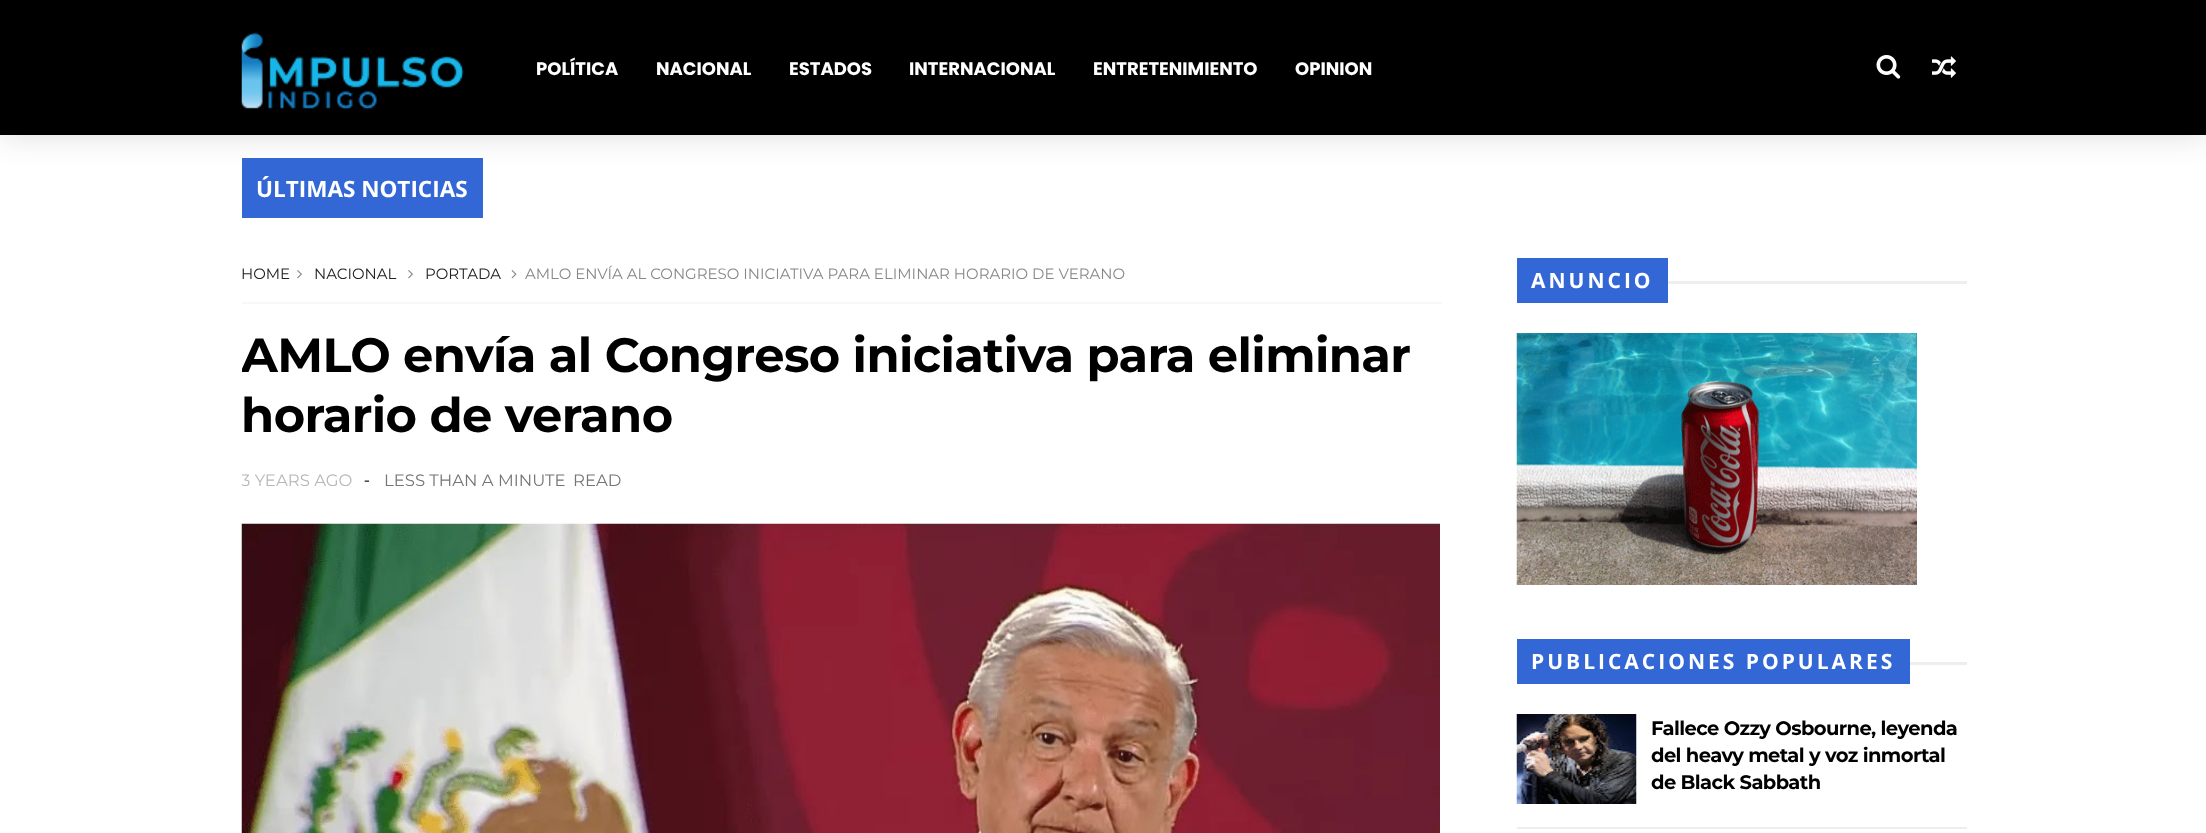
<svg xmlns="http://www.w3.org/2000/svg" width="2206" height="833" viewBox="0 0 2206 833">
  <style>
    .t1 { font: bold 18px Poppins; fill: #fff; }
    .t2 { font: bold 22.5px Open Sans; fill: #fff; }
    .t3 { font: 15px Montserrat; fill: #222; }
    .t4 { font: 15px Montserrat; fill: #888; }
    .t5 { font: bold 48px Montserrat; letter-spacing: -0.6px; fill: #000; }
    .t6 { font: 16.5px Montserrat; fill: #b7b7b7; }
    .t7 { font: 18px Open Sans; fill: #222; }
    .t8 { font: 16.5px Montserrat; fill: #757575; }
    .t9 { font: bold 21px Open Sans; letter-spacing: 3px; fill: #fff; }
    .t10 { font: bold 19.5px Montserrat; letter-spacing: -0.6px; fill: #000; }
  </style>
  <defs>
    <clipPath id="clip1"><rect x="242" y="255" width="1200" height="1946"/></clipPath>
  </defs>
  <rect width="100%" height="100%" fill="#fff"/>
  <rect x="0" y="2" width="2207" height="135" fill="#0000001f" filter="blur(15px)"/>
  <rect x="0" y="0" width="2206" height="135" fill="#000"/>
  <image x="241" y="32" width="223" height="78" href="images/1.png"/>
  <text x="536" y="75" class="t1">POLÍTICA</text>
  <text x="656" y="75" class="t1">NACIONAL</text>
  <text x="789" y="75" class="t1">ESTADOS</text>
  <text x="909" y="75" class="t1">INTERNACIONAL</text>
  <text x="1093" y="75" class="t1">ENTRETENIMIENTO</text>
  <text x="1295" y="75" class="t1">OPINION</text>
  <image x="1876" y="55" width="25" height="24" href="images/2.png"/>
  <image x="1932" y="56" width="24" height="22" href="images/3.png"/>
  <rect x="242" y="158" width="241" height="60" fill="#3367d6"/>
  <text x="256" y="197" class="t2">ÚLTIMAS NOTICIAS</text>
  <text x="241" y="279" class="t3">HOME</text>
  <image x="297" y="270" width="5" height="9" href="images/4.png"/>
  <text x="314" y="279" class="t3">NACIONAL</text>
  <image x="408" y="270" width="5" height="9" href="images/4.png"/>
  <text x="425" y="279" class="t3">PORTADA</text>
  <image x="511" y="270" width="6" height="9" href="images/5.png"/>
  <text x="525" y="279" class="t4">AMLO ENVÍA AL CONGRESO INICIATIVA PARA ELIMINAR HORARIO DE VERANO</text>
  <rect x="242" y="302" width="1200" height="2" fill="#f8f8f8"/>
  <g clip-path="url(#clip1)">
    <text x="241" y="372" class="t5">AMLO envía al Congreso iniciativa para eliminar</text>
  </g>
  <text x="241" y="432" class="t5">horario de verano</text>
  <g clip-path="url(#clip1)">
    <text x="241" y="486" class="t6">3 YEARS AGO</text>
  </g>
  <text x="364" y="486" class="t7">-</text>
  <text x="384" y="486" class="t8">LESS THAN A MINUTE</text>
  <text x="573" y="486" class="t8">READ</text>
  <image x="241" y="523" width="1199" height="310" href="images/6.png"/>
  <rect x="1517" y="258" width="151" height="45" fill="#3367d6"/>
  <text x="1531" y="288" class="t9">ANUNCIO</text>
  <rect x="1668" y="281" width="299" height="3" fill="#eee"/>
  <image x="1516" y="333" width="401" height="252" href="images/7.png"/>
  <rect x="1517" y="639" width="393" height="45" fill="#3367d6"/>
  <text x="1531" y="669" class="t9">PUBLICACIONES POPULARES</text>
  <rect x="1910" y="662" width="57" height="3" fill="#eee"/>
  <image x="1516" y="714" width="121" height="90" href="images/8.png"/>
  <text x="1651" y="735" class="t10">Fallece Ozzy Osbourne, leyenda</text>
  <text x="1651" y="762" class="t10">del heavy metal y voz inmortal</text>
  <text x="1651" y="789" class="t10">de Black Sabbath</text>
  <rect x="1517" y="827" width="450" height="2" fill="#eee"/>
</svg>
